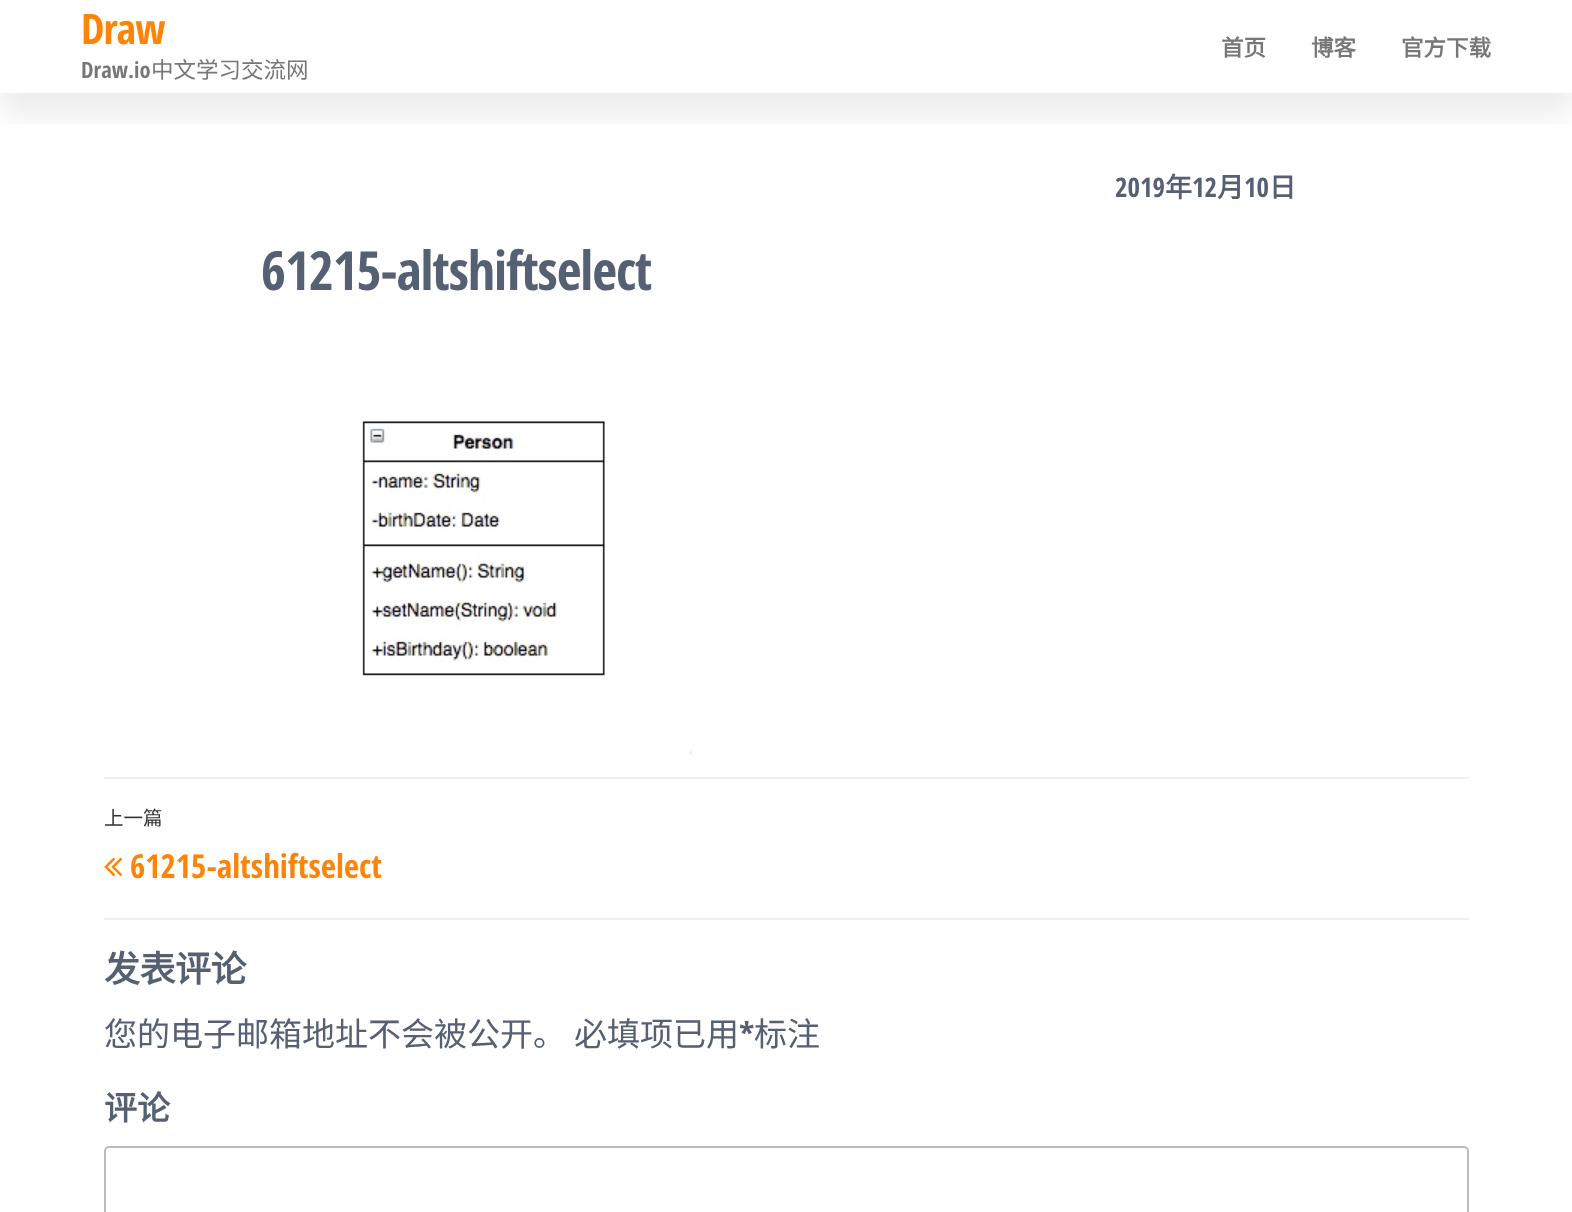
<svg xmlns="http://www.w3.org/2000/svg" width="1572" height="1212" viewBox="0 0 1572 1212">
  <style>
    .t1 { font: bold 42px Open Sans Condensed; letter-spacing: -1px; fill: #fd8407; }
    .t2 { font: bold 22.5px Open Sans Condensed; fill: #777; }
    .t3 { font: 22.5px Noto Sans CJK SC; fill: #777; }
    .t4 { font: bold 22.5px Noto Sans CJK SC; fill: #777; }
    .t5 { font: bold 27px Open Sans Condensed; fill: #566073; }
    .t6 { font: bold 27px Noto Sans CJK SC; fill: #566073; }
    .t7 { font: bold 54px Open Sans Condensed; letter-spacing: -1.1px; fill: #566073; }
    .t8 { font: 19.5px Noto Sans CJK SC; fill: #333; }
    .t9 { font: bold 33px Open Sans Condensed; fill: #fd8407; }
    .t10 { font: bold 36px Noto Sans CJK SC; letter-spacing: -0.5px; fill: #566073; }
    .t11 { font: 33px Noto Sans CJK SC; fill: #566073; }
    .t12 { font: bold 33px Open Sans Condensed; fill: #566073; }
    .t13 { font: bold 33px Noto Sans CJK SC; fill: #566073; }
  </style>
  <defs>
    <clipPath id="clip1"><rect x="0" y="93" width="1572" height="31"/></clipPath>
  </defs>
  <rect width="100%" height="100%" fill="#fff"/>
  <g clip-path="url(#clip1)">
    <rect x="0" y="21" width="1572" height="93" fill="#00000014" filter="blur(15px)"/>
  </g>
  <text x="81" y="44" class="t1">Draw</text>
  <text x="81" y="78" class="t2">Draw.io</text>
  <text x="151" y="78" class="t3">中文学习交流网</text>
  <text x="1221" y="56" class="t4">首页</text>
  <text x="1311" y="56" class="t4">博客</text>
  <text x="1401" y="56" class="t4">官方下载</text>
  <text x="1115" y="197" class="t5">2019</text>
  <text x="1165" y="197" class="t6">年</text>
  <text x="1192" y="197" class="t5">12</text>
  <text x="1217" y="197" class="t6">月</text>
  <text x="1244" y="197" class="t5">10</text>
  <text x="1269" y="197" class="t6">日</text>
  <text x="261" y="290" class="t7">61215-altshiftselect</text>
  <image x="362" y="421" width="330" height="334" href="images/1.png"/>
  <rect x="104" y="777" width="1365" height="2" fill="#efefef"/>
  <rect x="104" y="918" width="1365" height="2" fill="#efefef"/>
  <text x="104" y="825" class="t8">上一篇</text>
  <image x="104" y="857" width="19" height="19" href="images/2.png"/>
  <text x="130" y="878" class="t9">61215-altshiftselect</text>
  <text x="104" y="982" class="t10">发表评论</text>
  <text x="104" y="1046" class="t11">您的电子邮箱地址不会被公开。</text>
  <text x="574" y="1046" class="t11">必填项已用</text>
  <text x="739" y="1046" class="t12">*</text>
  <text x="754" y="1046" class="t11">标注</text>
  <text x="104" y="1120" class="t13">评论</text>
  <rect x="105" y="1147" width="1363" height="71" rx="4" fill="none" stroke="#bbb" stroke-width="2"/>
</svg>
